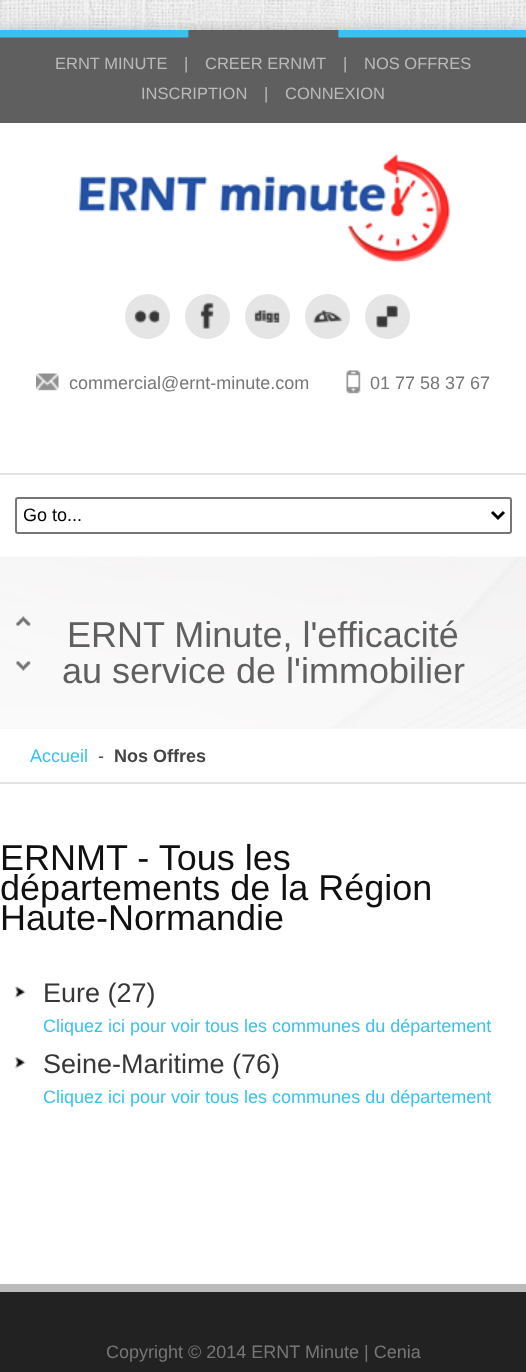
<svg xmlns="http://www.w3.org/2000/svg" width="526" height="1372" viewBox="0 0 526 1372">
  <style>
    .t1 { font: 16.5px Liberation Sans; fill: #bbb; }
    .t2 { font: 18px Liberation Sans; fill: #777; }
    .t3 { font: 18px Liberation Sans; fill: #000; }
    .t4 { font: 36px Liberation Sans; fill: #5f5f5f; }
    .t5 { font: 18px Liberation Sans; fill: #39c2f0; }
    .t6 { font: 18px Liberation Sans; fill: #444; }
    .t7 { font: bold 18px Liberation Sans; fill: #444; }
    .t8 { font: 36px Liberation Sans; fill: #101010; }
    .t9 { font: 27px Liberation Sans; fill: #373737; }
  </style>
  <rect width="100%" height="100%" fill="#fff"/>
  <image x="0" y="0" width="526" height="30" href="images/1.png"/>
  <rect x="0" y="30" width="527" height="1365" fill="#00000033" filter="blur(7.5px)"/>
  <rect x="0" y="123" width="526" height="720" fill="#fff"/>
  <rect x="0" y="30" width="526" height="93" fill="#5f5f5f"/>
  <image x="0" y="30" width="526" height="8" href="images/2.png"/>
  <text x="55" y="69" class="t1">ERNT MINUTE</text>
  <text x="184" y="69" class="t1">|</text>
  <text x="205" y="69" class="t1">CREER ERNMT</text>
  <text x="343" y="69" class="t1">|</text>
  <text x="364" y="69" class="t1">NOS OFFRES</text>
  <text x="141" y="99" class="t1">INSCRIPTION</text>
  <text x="264" y="99" class="t1">|</text>
  <text x="285" y="99" class="t1">CONNEXION</text>
  <image x="78" y="154" width="372" height="109" href="images/3.png"/>
  <circle cx="147.5" cy="316.5" r="22.5" fill="#e5e5e5"/>
  <image x="134" y="310" width="26" height="13" href="images/4.png"/>
  <circle cx="207.5" cy="316.5" r="22.5" fill="#e5e5e5"/>
  <image x="200" y="302" width="14" height="27" href="images/5.png"/>
  <circle cx="267.5" cy="316.5" r="22.5" fill="#e5e5e5"/>
  <image x="254" y="310" width="26" height="13" href="images/6.png"/>
  <circle cx="327.5" cy="316.5" r="22.5" fill="#e5e5e5"/>
  <image x="313" y="310" width="30" height="13" href="images/7.png"/>
  <circle cx="387.5" cy="316.5" r="22.5" fill="#e5e5e5"/>
  <image x="376" y="305" width="22" height="23" href="images/8.png"/>
  <image x="36" y="373" width="23" height="18" href="images/9.png"/>
  <text x="69" y="389" class="t2">commercial@ernt-minute.com</text>
  <image x="346" y="370" width="15" height="24" href="images/10.png"/>
  <text x="370" y="389" class="t2">01 77 58 37 67</text>
  <rect x="0" y="473" width="526" height="2" fill="#e4e4e4"/>
  <rect x="16" y="498" width="495" height="35" rx="2" fill="none" stroke="#767676" stroke-width="2"/>
  <path d="M492 512L498 518L504 512" fill="none" stroke="#000" stroke-width="3"/>
  <text x="23" y="521" class="t3">Go to...</text>
  <rect x="0" y="728" width="526" height="1" fill="#f8f8f8"/>
  <image x="0" y="556" width="526" height="172" href="images/11.png"/>
  <image x="16" y="616" width="15" height="10" href="images/12.png"/>
  <image x="16" y="661" width="15" height="10" href="images/13.png"/>
  <text x="67" y="647" class="t4">ERNT Minute, l'efficacité</text>
  <text x="62" y="683" class="t4">au service de l'immobilier</text>
  <rect x="0" y="782" width="526" height="2" fill="#e4e4e4"/>
  <text x="30" y="762" class="t5">Accueil</text>
  <text x="98" y="762" class="t6">-</text>
  <text x="114" y="762" class="t7">Nos Offres</text>
  <rect x="0" y="843" width="526" height="441" fill="#fff"/>
  <text x="0" y="870" class="t8">ERNMT - Tous les</text>
  <text x="0" y="900" class="t8">départements de la Région</text>
  <text x="0" y="930" class="t8">Haute-Normandie</text>
  <image x="14" y="986" width="12" height="12" href="images/14.png"/>
  <text x="43" y="1002" class="t9">Eure (27)</text>
  <text x="43" y="1032" class="t5">Cliquez ici pour voir tous les communes du département</text>
  <image x="14" y="1057" width="12" height="12" href="images/15.png"/>
  <text x="43" y="1073" class="t9">Seine-Maritime (76)</text>
  <text x="43" y="1103" class="t5">Cliquez ici pour voir tous les communes du département</text>
  <rect x="0" y="1284" width="526" height="8" fill="#bbb"/>
  <rect x="0" y="1292" width="526" height="80" fill="#222"/>
  <text x="106" y="1358" class="t2">Copyright © 2014 ERNT Minute | Cenia</text>
</svg>
